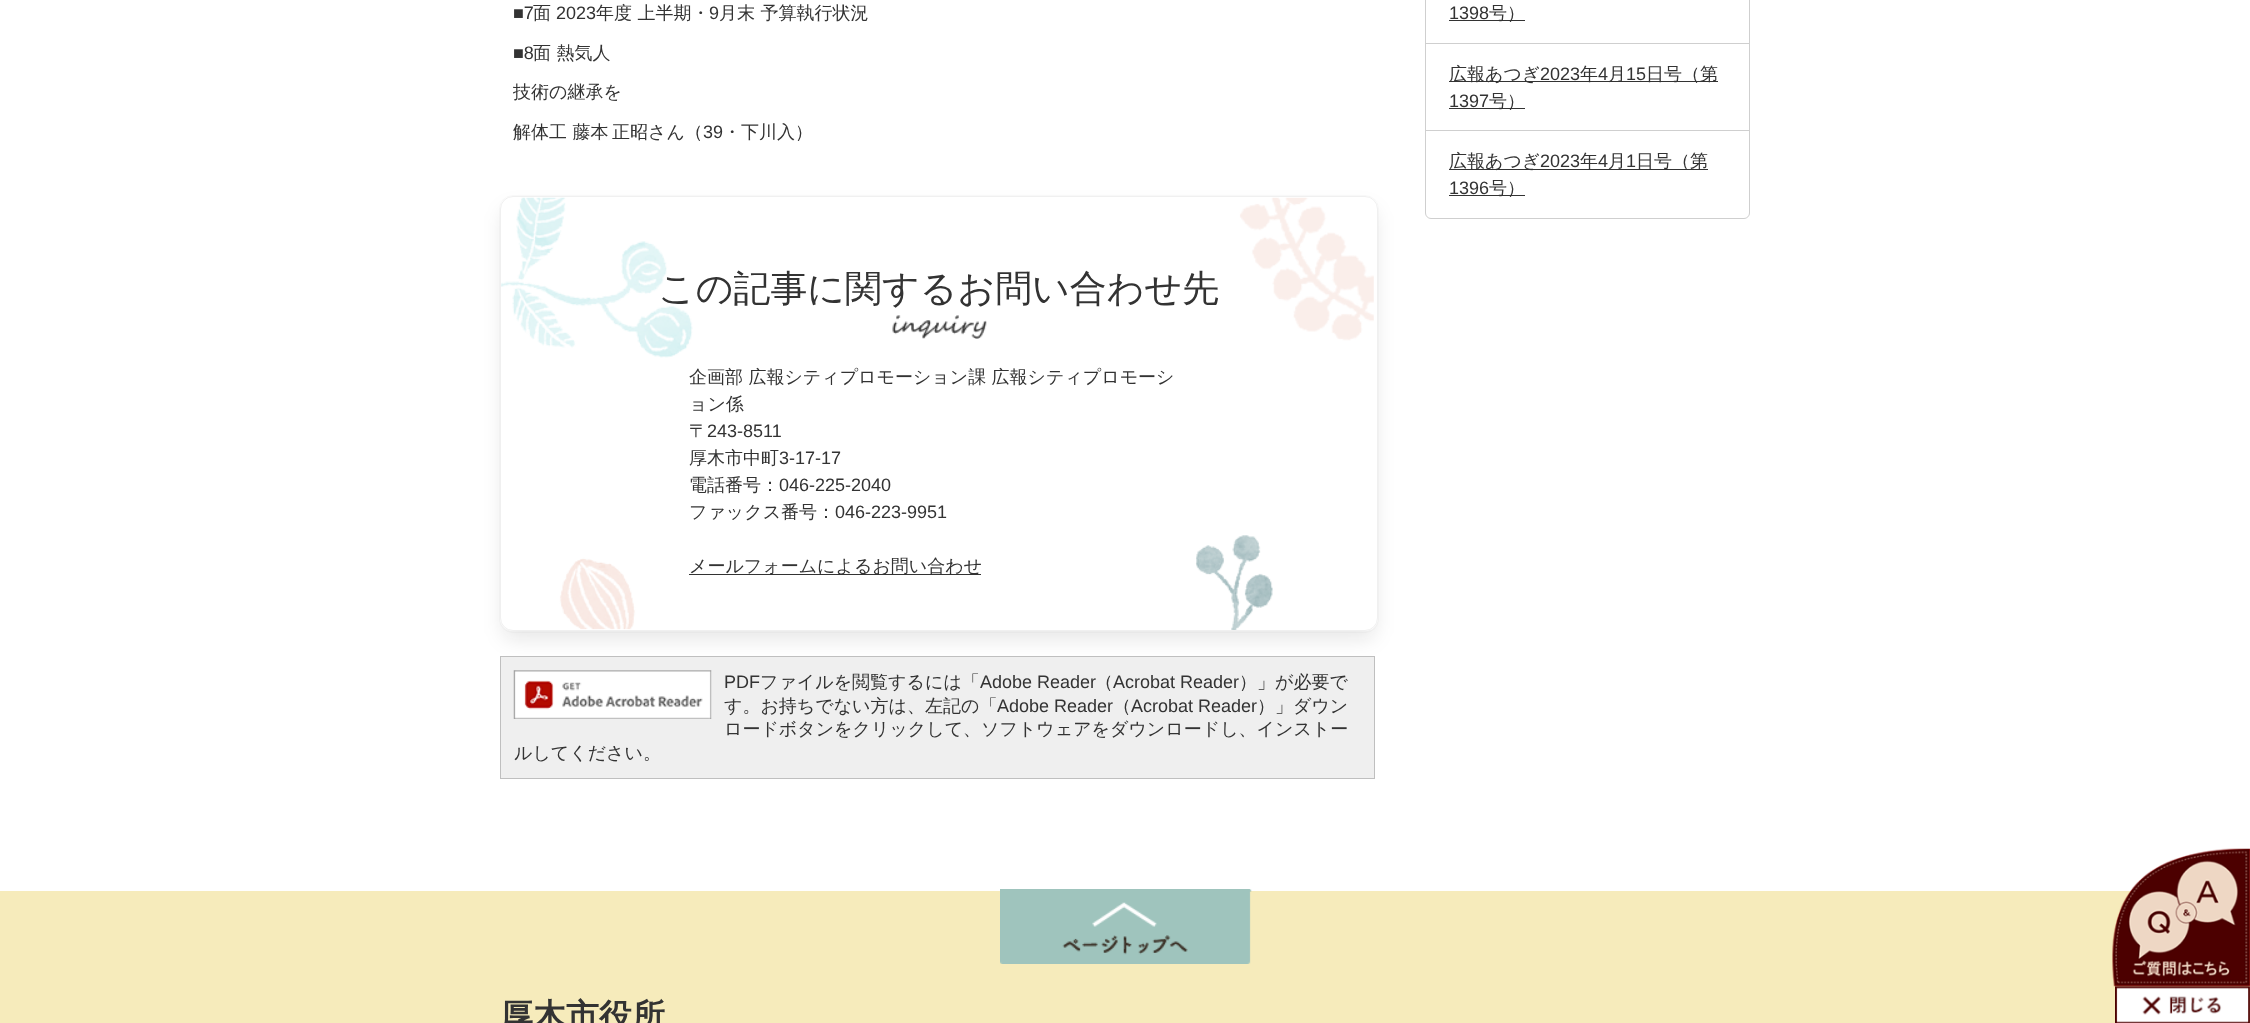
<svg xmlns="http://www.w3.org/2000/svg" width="2250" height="1023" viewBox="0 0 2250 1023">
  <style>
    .t1 { font: 18px Liberation Sans; fill: #333; }
    .t2 { font: 500 18px WenQuanYi Zen Hei; fill: #333; }
    .t3 { font: 500 36.9px WenQuanYi Zen Hei; fill: #333; }
    .t4 { font: bold 33px WenQuanYi Zen Hei; fill: #333; }
  </style>
  <rect width="100%" height="100%" fill="#fff"/>
  <text x="513" y="19" class="t1">■7</text>
  <text x="533" y="19" class="t2">面</text>
  <text x="556" y="19" class="t1">2023</text>
  <text x="596" y="19" class="t2">年度 上半期・</text>
  <text x="709" y="19" class="t1">9</text>
  <text x="719" y="19" class="t2">月末 予算執行状況</text>
  <text x="513" y="59" class="t1">■8</text>
  <text x="533" y="59" class="t2">面 熱気人</text>
  <text x="513" y="98" class="t2">技術の継承を</text>
  <text x="513" y="138" class="t2">解体工 藤本</text>
  <text x="612" y="138" class="t2">正昭さん（</text>
  <text x="703" y="138" class="t1">39</text>
  <text x="723" y="138" class="t2">・下川入）</text>
  <rect x="499.5" y="195.5" width="879" height="437" rx="13.5" fill="none" stroke="#fafafa"/>
  <rect x="503" y="209" width="872" height="430" rx="10" fill="#0a0a0a1a" filter="blur(10px)"/>
  <rect x="500" y="196" width="878" height="435" rx="13" fill="#fff"/>
  <image x="501" y="197" width="873" height="433" href="images/1.png"/>
  <rect x="500.5" y="196.5" width="877" height="434" rx="12.5" fill="none" stroke="#f0f0f0"/>
  <text x="658" y="301" class="t3">この記事に関するお問い合わせ先</text>
  <image x="892" y="315" width="95" height="24" href="images/2.png"/>
  <text x="689" y="383" class="t2">企画部 広報シティプロモーション課 広報シティプロモーシ</text>
  <text x="689" y="410" class="t2">ョン係</text>
  <text x="689" y="437" class="t2">〒</text>
  <text x="707" y="437" class="t1">243-8511</text>
  <text x="689" y="464" class="t2">厚木市中町</text>
  <text x="779" y="464" class="t1">3-17-17</text>
  <text x="689" y="491" class="t2">電話番号：</text>
  <text x="779" y="491" class="t1">046-225-2040</text>
  <text x="689" y="518" class="t2">ファックス番号：</text>
  <text x="835" y="518" class="t1">046-223-9951</text>
  <rect x="689" y="574" width="292" height="1" fill="#333"/>
  <text x="689" y="572" class="t2">メールフォームによるお問い合わせ</text>
  <rect x="500.5" y="656.5" width="874" height="122" fill="#efefef" stroke="#bfbfbf"/>
  <image x="513" y="670" width="199" height="49" href="images/3.png"/>
  <text x="724" y="688" class="t1">PDF</text>
  <text x="760" y="688" class="t2">ファイルを閲覧するには「</text>
  <text x="980" y="688" class="t1">Adobe Reader</text>
  <text x="1095" y="688" class="t2">（</text>
  <text x="1113" y="688" class="t1">Acrobat Reader</text>
  <text x="1239" y="688" class="t2">）」が必要で</text>
  <text x="724" y="712" class="t2">す。お持ちでない方は、左記の「</text>
  <text x="997" y="712" class="t1">Adobe Reader</text>
  <text x="1113" y="712" class="t2">（</text>
  <text x="1131" y="712" class="t1">Acrobat Reader</text>
  <text x="1257" y="712" class="t2">）」ダウン</text>
  <text x="724" y="735" class="t2">ロードボタンをクリックして、ソフトウェアをダウンロードし、インストー</text>
  <text x="514" y="759" class="t2">ルしてください。</text>
  <rect x="1425.5" y="-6.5" width="324" height="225" rx="5.5" fill="none" stroke="#cfcfcf"/>
  <text x="1449" y="19" class="t1">1398</text>
  <rect x="1449" y="20" width="76" height="1" fill="#333"/>
  <text x="1489" y="19" class="t2">号）</text>
  <rect x="1426" y="43" width="323" height="1" fill="#cfcfcf"/>
  <rect x="1449" y="81" width="269" height="1" fill="#333"/>
  <text x="1449" y="80" class="t2">広報あつぎ</text>
  <text x="1540" y="80" class="t1">2023</text>
  <text x="1580" y="80" class="t2">年</text>
  <text x="1598" y="80" class="t1">4</text>
  <text x="1608" y="80" class="t2">月</text>
  <text x="1626" y="80" class="t1">15</text>
  <text x="1646" y="80" class="t2">日号（第</text>
  <text x="1449" y="107" class="t1">1397</text>
  <rect x="1449" y="108" width="76" height="1" fill="#333"/>
  <text x="1489" y="107" class="t2">号）</text>
  <rect x="1426" y="130" width="323" height="1" fill="#cfcfcf"/>
  <rect x="1449" y="169" width="259" height="1" fill="#333"/>
  <text x="1449" y="167" class="t2">広報あつぎ</text>
  <text x="1540" y="167" class="t1">2023</text>
  <text x="1580" y="167" class="t2">年</text>
  <text x="1598" y="167" class="t1">4</text>
  <text x="1608" y="167" class="t2">月</text>
  <text x="1626" y="167" class="t1">1</text>
  <text x="1636" y="167" class="t2">日号（第</text>
  <text x="1449" y="194" class="t1">1396</text>
  <rect x="1449" y="195" width="76" height="1" fill="#333"/>
  <text x="1489" y="194" class="t2">号）</text>
  <rect x="0" y="891" width="2250" height="132" fill="#f6ebbb"/>
  <image x="1000" y="889" width="252" height="75" href="images/4.png"/>
  <text x="500" y="1027" class="t4">厚木市役所</text>
  <image x="2115" y="986" width="135" height="37" href="images/6.png"/>
  <image x="2112" y="848" width="138" height="139" href="images/5.png"/>
</svg>
